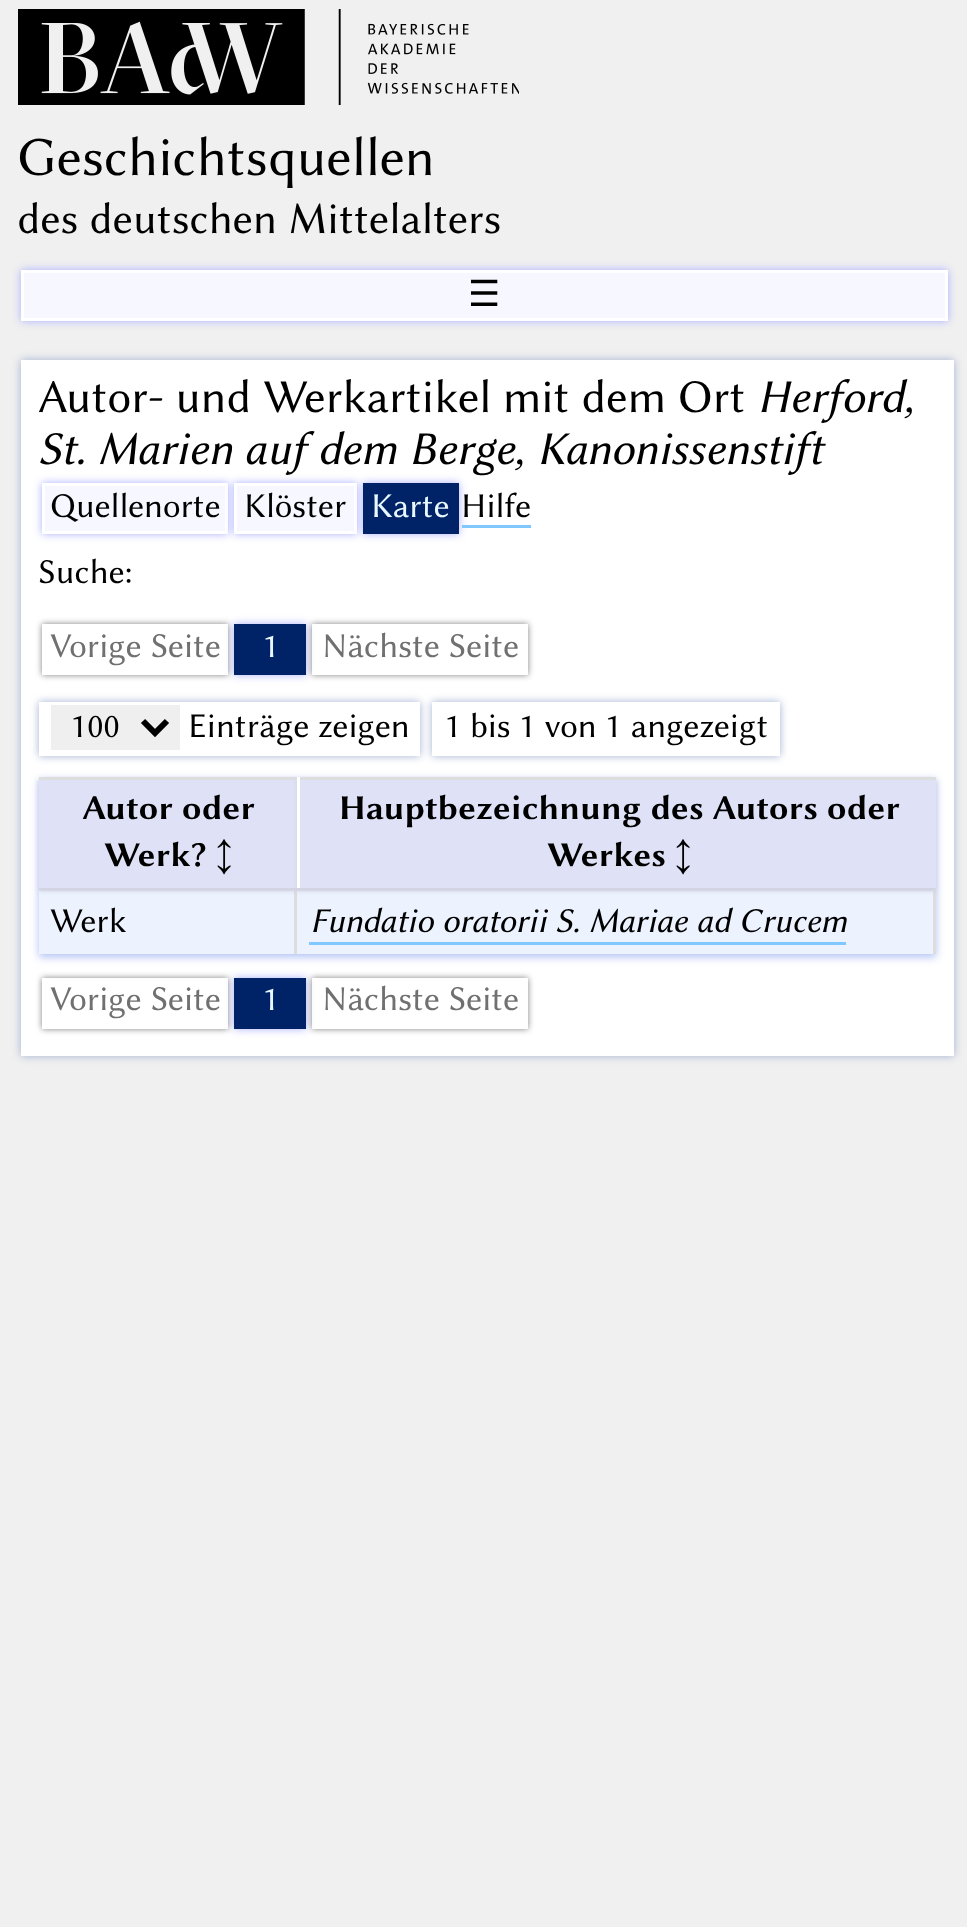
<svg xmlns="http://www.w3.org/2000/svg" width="967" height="1927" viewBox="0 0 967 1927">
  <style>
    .t1 { font: 55.5px Libertinus Sans; fill: #000; }
    .t2 { font: 44.4px Libertinus Sans; fill: #000; }
    .t3 { font: 36px DejaVu Sans; fill: #000; }
    .t4 { font: 47.25px Libertinus Sans; fill: #000; }
    .t5 { font: italic 47.25px Libertinus Sans; fill: #000; }
    .t6 { font: 35px Libertinus Sans; fill: #000; }
    .t7 { font: 35px Libertinus Sans; fill: #e8f8ff; }
    .t8 { font: 35px Libertinus Sans; fill: #707070; }
    .t9 { font: bold 35px Libertinus Sans; fill: #000; }
    .t10 { font: italic 35px Libertinus Sans; fill: #000; }
  </style>
  <defs>
    <clipPath id="clip1"><path d="M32 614H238V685H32ZM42 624H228V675H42Z" clip-rule="evenodd"/></clipPath>
    <clipPath id="clip2"><path d="M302 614H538V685H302ZM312 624H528V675H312Z" clip-rule="evenodd"/></clipPath>
    <clipPath id="clip3"><path d="M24 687H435V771H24ZM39 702H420V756H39Z" clip-rule="evenodd"/></clipPath>
    <clipPath id="clip4"><path d="M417 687H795V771H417ZM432 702H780V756H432Z" clip-rule="evenodd"/></clipPath>
    <clipPath id="clip5"><path d="M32 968H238V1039H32ZM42 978H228V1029H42Z" clip-rule="evenodd"/></clipPath>
    <clipPath id="clip6"><path d="M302 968H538V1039H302ZM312 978H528V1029H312Z" clip-rule="evenodd"/></clipPath>
  </defs>
  <rect width="100%" height="100%" fill="#f0f0f0"/>
  <image x="18" y="9" width="501" height="96" href="images/1.png"/>
  <text x="17" y="175" class="t1">Geschichtsquellen</text>
  <text x="17" y="233" class="t2">des deutschen Mittelalters</text>
  <rect x="21" y="270" width="927" height="51" fill="#aaafff" filter="blur(4.5px)"/>
  <rect x="22.5" y="271.5" width="924" height="48" fill="#f7f8ff" stroke="#fff" stroke-width="3"/>
  <text x="468" y="306" class="t3">☰</text>
  <rect x="21" y="360" width="933" height="696" fill="#a0b0d0" filter="blur(4.5px)"/>
  <rect x="21" y="360" width="933" height="696" fill="#fff"/>
  <text x="38" y="412" class="t4">Autor- und Werkartikel mit dem Ort</text>
  <text x="757" y="412" class="t5">Herford,</text>
  <text x="38" y="464" class="t5">St. Marien auf dem Berge, Kanonissenstift</text>
  <rect x="42" y="483" width="186" height="51" fill="#aaafff" filter="blur(4.5px)"/>
  <rect x="43.5" y="484.5" width="183" height="48" fill="#f7f8ff" stroke="#fff" stroke-width="3"/>
  <text x="50" y="517" class="t6">Quellenorte</text>
  <rect x="234" y="483" width="123" height="51" fill="#aaafff" filter="blur(4.5px)"/>
  <rect x="235.5" y="484.5" width="120" height="48" fill="#f7f8ff" stroke="#fff" stroke-width="3"/>
  <text x="244" y="517" class="t6">Klöster</text>
  <rect x="363" y="483" width="96" height="51" fill="#aaafff" filter="blur(4.5px)"/>
  <rect x="363" y="483" width="96" height="51" fill="#026"/>
  <text x="371" y="517" class="t7">Karte</text>
  <text x="461" y="517" class="t6">Hilfe</text>
  <rect x="462" y="525" width="69" height="3" fill="#80c8ff"/>
  <text x="38" y="583" class="t6">Suche:</text>
  <g clip-path="url(#clip1)">
    <rect x="42" y="624" width="186" height="51" fill="#808080" filter="blur(3px)"/>
  </g>
  <text x="50" y="657" class="t8">Vorige Seite</text>
  <rect x="234" y="624" width="72" height="51" fill="#aaafff" filter="blur(4.5px)"/>
  <rect x="234" y="624" width="72" height="51" fill="#026"/>
  <text x="263" y="657" class="t7">1</text>
  <g clip-path="url(#clip2)">
    <rect x="312" y="624" width="216" height="51" fill="#808080" filter="blur(3px)"/>
  </g>
  <text x="322" y="657" class="t8">Nächste Seite</text>
  <g clip-path="url(#clip3)">
    <rect x="39" y="702" width="381" height="54" fill="#a0b0d0" filter="blur(4.5px)"/>
  </g>
  <rect x="51" y="705" width="129" height="45" fill="#efefef"/>
  <path d="M143 721L155 733L167 721" fill="none" stroke="#000" stroke-width="6"/>
  <text x="71" y="737" class="t6">100</text>
  <text x="188" y="737" class="t6">Einträge zeigen</text>
  <g clip-path="url(#clip4)">
    <rect x="432" y="702" width="348" height="54" fill="#a0b0d0" filter="blur(4.5px)"/>
  </g>
  <text x="445" y="737" class="t6">1 bis 1 von 1 angezeigt</text>
  <rect x="39" y="780" width="897" height="177" fill="#b0c0f4" filter="blur(4.5px)"/>
  <rect x="39" y="891" width="255" height="63" fill="#ecf3fe"/>
  <rect x="39" y="888" width="897" height="3" fill="#ddd"/>
  <rect x="294" y="888" width="3" height="66" fill="#ddd"/>
  <rect x="297" y="891" width="636" height="63" fill="#ecf3fe"/>
  <rect x="39" y="780" width="258" height="111" fill="#d0d2e6" filter="blur(2px)"/>
  <rect x="39" y="780" width="258" height="108" fill="#dfe2f6"/>
  <rect x="39" y="777" width="258" height="3" fill="#ddd"/>
  <text x="82" y="819" class="t9">Autor oder</text>
  <text x="104" y="866" class="t9">Werk?</text>
  <text x="216" y="866" class="t6">↕</text>
  <rect x="933" y="888" width="3" height="66" fill="#ddd"/>
  <rect x="297" y="780" width="639" height="111" fill="#d0d2e6" filter="blur(2px)"/>
  <rect x="300" y="780" width="636" height="108" fill="#dfe2f6"/>
  <rect x="297" y="777" width="639" height="3" fill="#ddd"/>
  <rect x="297" y="777" width="3" height="111" fill="#fff"/>
  <text x="339" y="819" class="t9">Hauptbezeichnung des Autors oder</text>
  <text x="547" y="866" class="t9">Werkes</text>
  <text x="675" y="866" class="t6">↕</text>
  <text x="50" y="932" class="t6">Werk</text>
  <text x="310" y="932" class="t10">Fundatio oratorii S. Mariae ad Crucem</text>
  <rect x="309" y="942" width="537" height="3" fill="#80c8ff"/>
  <g clip-path="url(#clip5)">
    <rect x="42" y="978" width="186" height="51" fill="#808080" filter="blur(3px)"/>
  </g>
  <text x="50" y="1010" class="t8">Vorige Seite</text>
  <rect x="234" y="978" width="72" height="51" fill="#aaafff" filter="blur(4.5px)"/>
  <rect x="234" y="978" width="72" height="51" fill="#026"/>
  <text x="263" y="1010" class="t7">1</text>
  <g clip-path="url(#clip6)">
    <rect x="312" y="978" width="216" height="51" fill="#808080" filter="blur(3px)"/>
  </g>
  <text x="322" y="1010" class="t8">Nächste Seite</text>
</svg>
